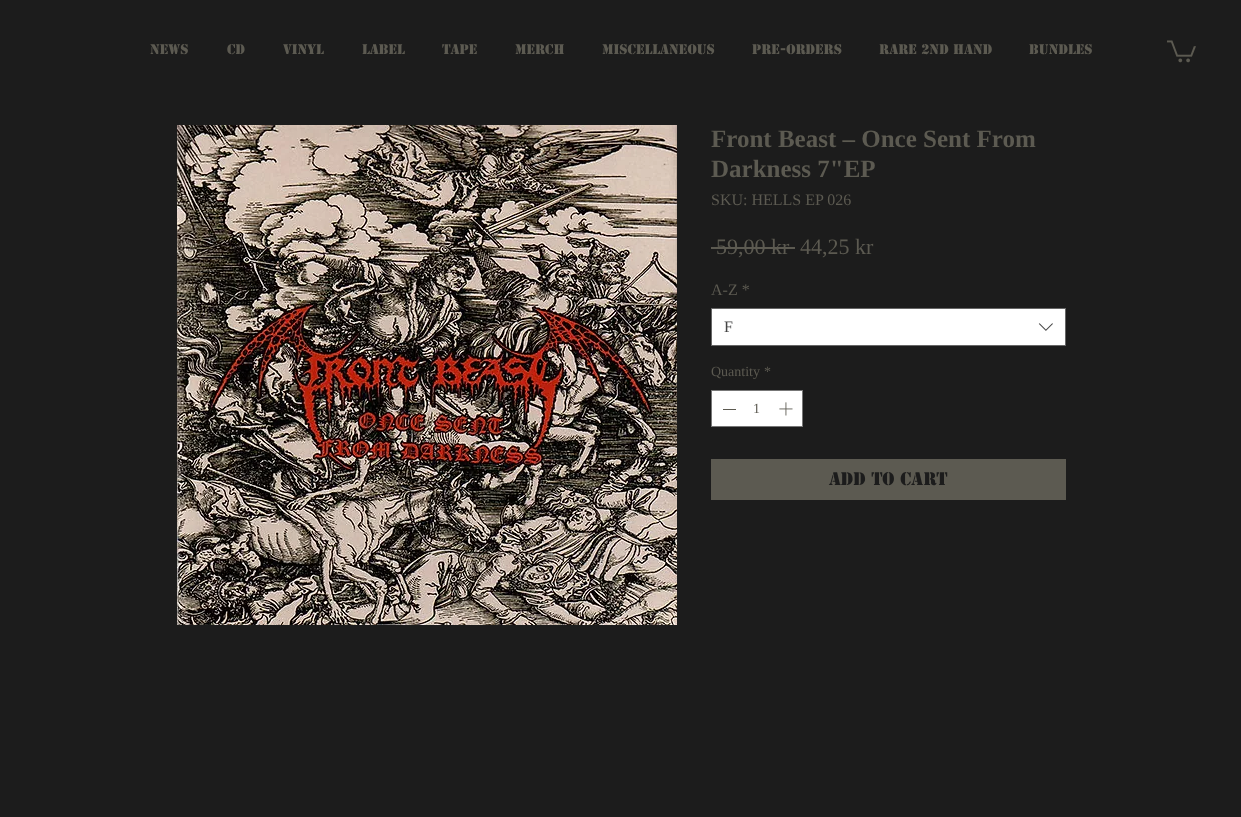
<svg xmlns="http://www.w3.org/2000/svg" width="1241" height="817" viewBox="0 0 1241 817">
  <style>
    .t1 { font: bold 13px 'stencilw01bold'; fill: #5c5a51; }
    .t2 { font: bold 25px Liberation Serif; fill: #5c5a51; }
    .t3 { font: 16px Liberation Serif; fill: #5c5a51; }
    .t4 { font: 22px Liberation Serif; fill: #5c5a51; }
    .t5 { font: 16px Liberation Serif; fill: #444; }
    .t6 { font: 14px Liberation Serif; fill: #5c5a51; }
    .t7 { font: bold 17px 'stencilw01bold'; fill: #1c1c1c; }
  </style>
  <rect width="100%" height="100%" fill="#1c1c1c"/>
  <text x="150" y="54" class="t1">NEWS</text>
  <text x="227" y="54" class="t1">CD</text>
  <text x="283" y="54" class="t1">VINYL</text>
  <text x="362" y="54" class="t1">LABEL</text>
  <text x="442" y="54" class="t1">TAPE</text>
  <text x="515" y="54" class="t1">MERCH</text>
  <text x="602" y="54" class="t1">MISCELLANEOUS</text>
  <text x="752" y="54" class="t1">PRE-ORDERS</text>
  <text x="879" y="54" class="t1">RARE 2ND HAND</text>
  <text x="1029" y="54" class="t1">Bundles</text>
  <image x="1167" y="40" width="29" height="23" href="images/1.png"/>
  <image x="177" y="125" width="500" height="500" href="images/2.png"/>
  <text x="711" y="147" class="t2">Front Beast – Once Sent From</text>
  <text x="711" y="177" class="t2">Darkness 7"EP</text>
  <text x="711" y="205" class="t3">SKU: HELLS EP 026</text>
  <text x="716" y="254" class="t4">59,00 kr</text>
  <rect x="711" y="247" width="84" height="2" fill="#5c5a51"/>
  <text x="800" y="254" class="t4">44,25 kr</text>
  <text x="711" y="295" class="t3">A-Z *</text>
  <rect x="711.5" y="308.5" width="354" height="37" fill="#fff" stroke="#666"/>
  <text x="724" y="332" class="t5">F</text>
  <image x="1038" y="323" width="15" height="8" href="images/3.png"/>
  <text x="711" y="376" class="t6">Quantity</text>
  <text x="764" y="376" class="t6">*</text>
  <rect x="711.5" y="390.5" width="91" height="36" fill="#fff" stroke="#777"/>
  <rect x="723" y="409" width="13" height="1" fill="#5c5a51"/>
  <text x="753" y="413" class="t6">1</text>
  <image x="779" y="402" width="14" height="14" href="images/4.png"/>
  <rect x="711" y="459" width="355" height="41" fill="#5c5a51"/>
  <text x="829" y="485" class="t7">Add to Cart</text>
</svg>
